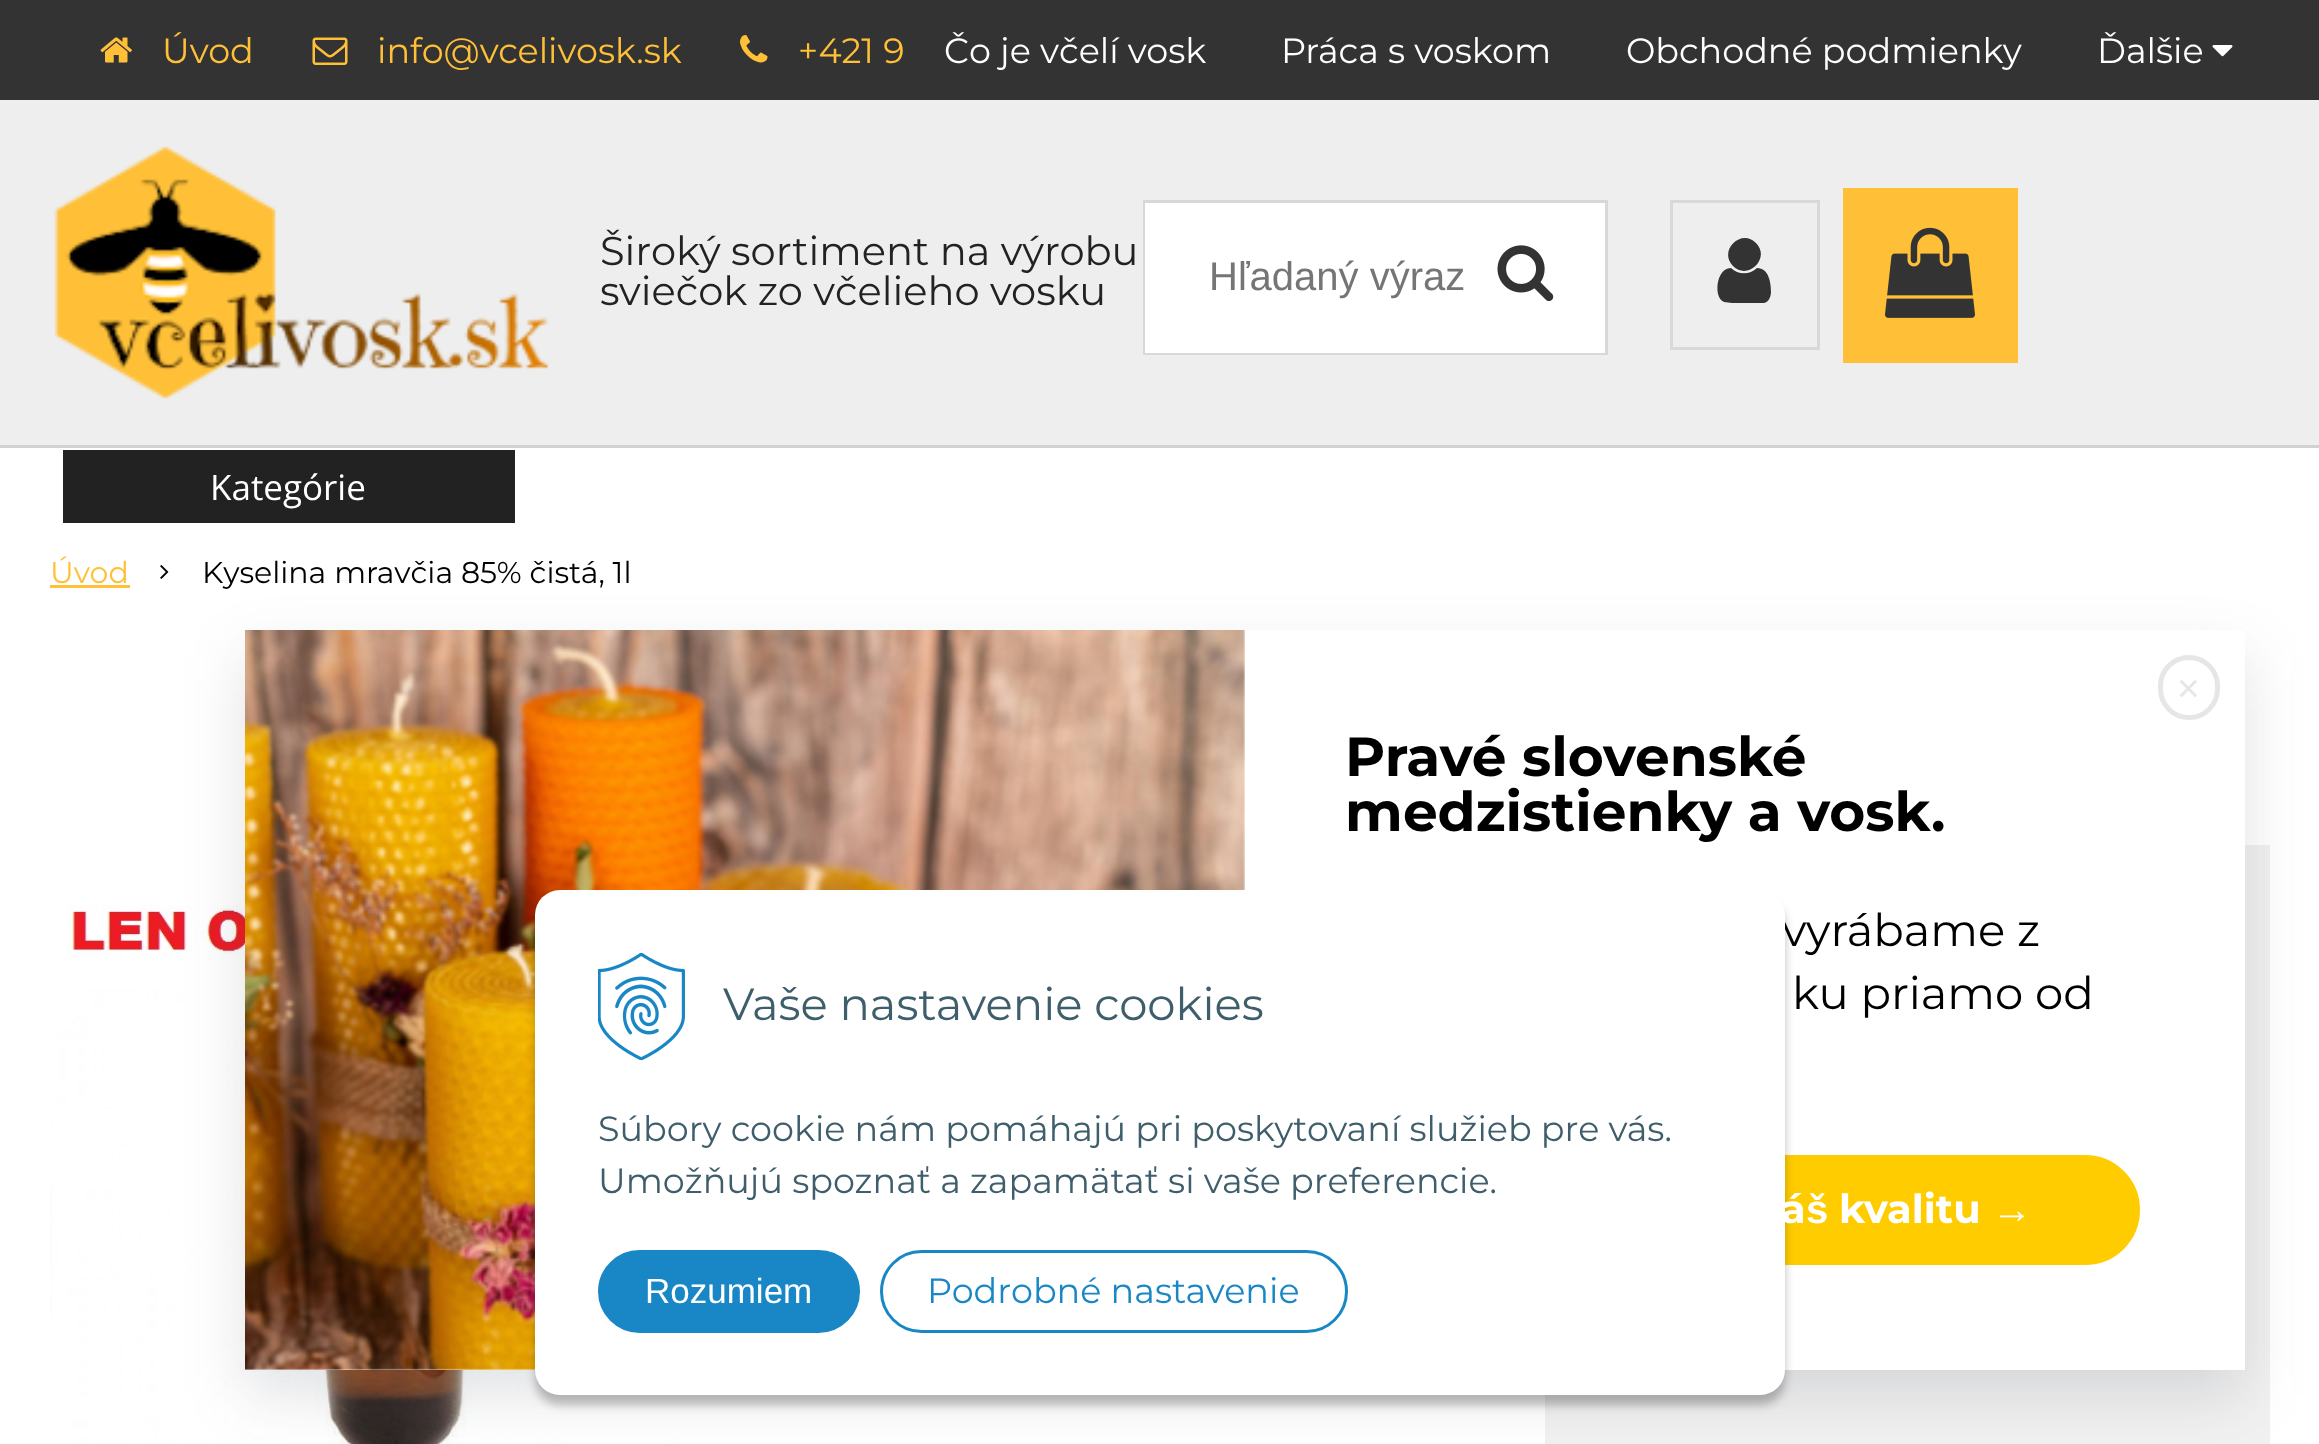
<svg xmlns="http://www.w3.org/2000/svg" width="2319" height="1444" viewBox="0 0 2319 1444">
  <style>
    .t1 { font: 35px Montserrat; fill: #ffc038; }
    .t2 { font: 40px Montserrat; fill: #222; }
    .t3 { font: 35px Montserrat; fill: #fff; }
    .t4 { font: 40px Liberation Sans; fill: #757575; }
    .t5 { font: 35px Open Sans; fill: #fff; }
    .t6 { font: 30px Montserrat; fill: #ffc038; }
    .t7 { font: 30px Montserrat; fill: #000; }
    .t8 { font: 45px Montserrat; fill: #000; }
    .t9 { font: 45px Montserrat; fill: #3f5e6c; }
    .t10 { font: 35px Montserrat; fill: #3f5e6c; }
    .t11 { font: 35px Liberation Sans; fill: #fff; }
    .t12 { font: 35px Montserrat; fill: #1987c6; }
    .t13 { font: 50px Montserrat; fill: #e6e6e6; }
    .t14 { font: bold 55px Montserrat; fill: #000; }
    .t15 { font: bold 40px Montserrat; fill: #fff; }
    .t16 { font: bold 40px Liberation Sans; fill: #fff; }
  </style>
  <rect width="100%" height="100%" fill="#fff"/>
  <rect x="0" y="100" width="2319" height="345" fill="#eee"/>
  <rect x="0" y="445" width="2319" height="3" fill="#d2d2d2"/>
  <rect x="0" y="0" width="2319" height="100" fill="#333"/>
  <image x="100" y="37" width="32" height="26" href="images/1.png"/>
  <text x="162" y="63" class="t1">Úvod</text>
  <image x="312" y="37" width="36" height="28" href="images/2.png"/>
  <text x="377" y="63" class="t1">info@vcelivosk.sk</text>
  <image x="740" y="35" width="28" height="28" href="images/3.png"/>
  <text x="798" y="63" class="t1">+421 9</text>
  <image x="54" y="146" width="495" height="253" href="images/4.png"/>
  <text x="600" y="265" class="t2">Široký sortiment na výrobu</text>
  <text x="600" y="305" class="t2">sviečok zo včelieho vosku</text>
  <text x="944" y="63" class="t3">Čo je včelí vosk</text>
  <text x="1281" y="63" class="t3">Práca s voskom</text>
  <text x="1626" y="63" class="t3">Obchodné podmienky</text>
  <text x="2097" y="63" class="t3">Ďalšie</text>
  <image x="2212" y="45" width="21" height="12" href="images/5.png"/>
  <rect x="1144.5" y="201.5" width="462" height="152" fill="none" stroke="#d8d8d8" stroke-width="3"/>
  <rect x="1145" y="203" width="460" height="150" fill="#fff"/>
  <text x="1209" y="290" class="t4">Hľadaný výraz</text>
  <image x="1497" y="245" width="57" height="57" href="images/6.png"/>
  <rect x="1671.5" y="201.5" width="147" height="147" fill="none" stroke="#d8d8d8" stroke-width="3"/>
  <path d="M1771 292C1771 296 1769 302 1764 303H1732L1724 302C1713 298 1716 268 1731 268C1738 275 1750 275 1757 268C1769 268 1771 283 1771 292ZM1756 243C1771 258 1748 281 1733 266C1718 251 1741 228 1756 243Z" fill="#333"/>
  <rect x="1843" y="188" width="175" height="175" fill="#ffc038"/>
  <image x="1885" y="227" width="90" height="91" href="images/7.png"/>
  <rect x="63" y="450" width="452" height="73" fill="#222"/>
  <text x="210" y="500" class="t5">Kategórie</text>
  <text x="50" y="583" class="t6">Úvod</text>
  <rect x="50" y="585" width="80" height="3" fill="#ffc038"/>
  <image x="160" y="565" width="9" height="14" href="images/8.png"/>
  <text x="202" y="583" class="t7">Kyselina mravčia 85% čistá, 1l</text>
  <image x="50" y="888" width="637" height="556" href="images/9.png"/>
  <rect x="1545" y="845" width="725" height="599" fill="#f1f1f1"/>
  <rect x="245" y="655" width="2000" height="740" fill="#363d4d26" filter="blur(30px)"/>
  <rect x="245" y="630" width="2000" height="740" fill="#fff"/>
  <image x="245" y="630" width="1000" height="740" href="images/11.png"/>
  <rect x="1347.5" y="1152.5" width="795" height="115" rx="57.5" fill="#fc0" stroke="#fff" stroke-width="5"/>
  <rect x="535" y="900" width="1250" height="505" rx="25" fill="#00000040" filter="blur(5px)"/>
  <text x="1782" y="946" class="t8">vyrábame z</text>
  <rect x="535" y="890" width="1250" height="505" rx="25" fill="#fff"/>
  <image x="598" y="953" width="87" height="107" href="images/10.png"/>
  <text x="723" y="1020" class="t9">Vaše nastavenie cookies</text>
  <text x="598" y="1141" class="t10">Súbory cookie nám pomáhajú pri poskytovaní služieb pre vás.</text>
  <text x="598" y="1193" class="t10">Umožňujú spoznať a zapamätať si vaše preferencie.</text>
  <rect x="599.5" y="1251.5" width="259" height="80" rx="40" fill="#1987c6" stroke="#1987c6" stroke-width="3"/>
  <text x="645" y="1303" class="t11">Rozumiem</text>
  <rect x="881.5" y="1251.5" width="465" height="80" rx="40" fill="none" stroke="#1987c6" stroke-width="3"/>
  <text x="927" y="1303" class="t12">Podrobné nastavenie</text>
  <rect x="2160.5" y="657.5" width="57" height="60" rx="28.5" fill="none" stroke="#e6e6e6" stroke-width="5"/>
  <text x="2174" y="706" class="t13">×</text>
  <text x="1345" y="776" class="t14">Pravé slovenské</text>
  <text x="1345" y="831" class="t14">medzistienky a vosk.</text>
  <text x="1792" y="1009" class="t8">ku priamo od</text>
  <text x="1781" y="1223" class="t15">á</text>
  <text x="1806" y="1223" class="t16">š</text>
  <text x="1839" y="1223" class="t15">kvalitu</text>
  <text x="1992" y="1223" class="t16">→</text>
</svg>
